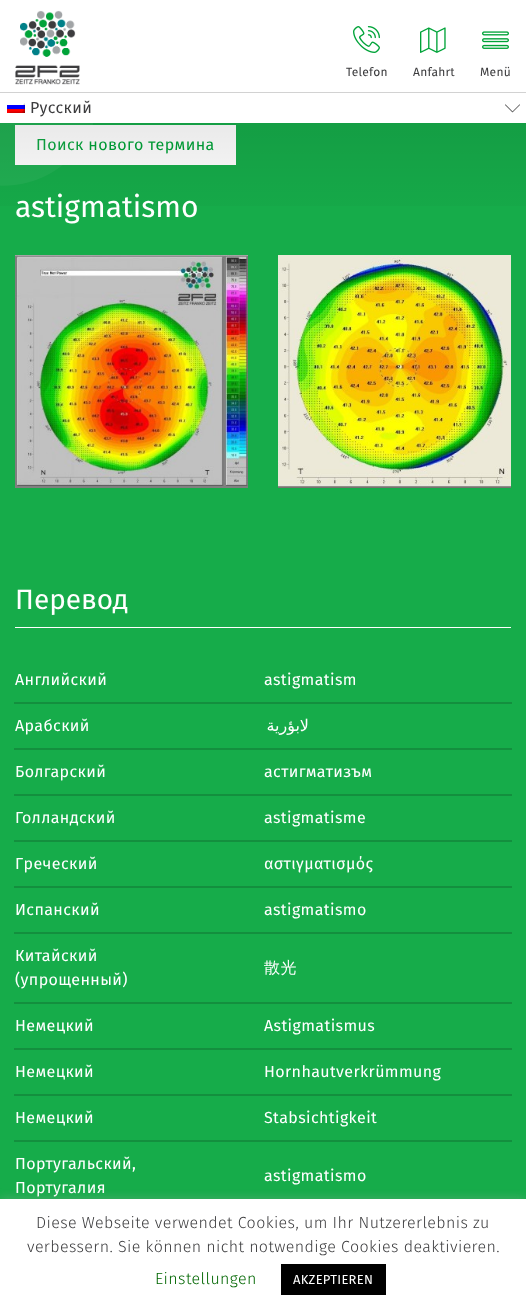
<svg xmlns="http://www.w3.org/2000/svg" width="526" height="1312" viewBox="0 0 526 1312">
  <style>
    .t1 { font: 12px Fira Sans; letter-spacing: 0.25px; fill: #3c3c3e; }
    .t2 { font: 16px Fira Sans; letter-spacing: 0.4px; fill: #3c3c3e; }
    .t3 { font: 16px Fira Sans; letter-spacing: 0.4px; fill: #00a338; }
    .t4 { font: 30px Fira Sans; fill: #fff; }
    .t5 { font: 28px Fira Sans; fill: #fff; }
    .t6 { font: 16px Fira Sans; letter-spacing: 0.4px; fill: #fff; }
    .t7 { font: 16px DejaVu Sans; letter-spacing: 0.4px; direction: rtl; fill: #fff; }
    .t8 { font: 500 16px WenQuanYi Zen Hei; letter-spacing: 0.4px; fill: #fff; }
    .t9 { font: 300 16px Fira Sans; letter-spacing: 0.4px; fill: #3c3c3e; }
    .t10 { font: 300 16px Fira Sans; letter-spacing: 0.4px; fill: #060; }
    .t11 { font: 13px Fira Sans; letter-spacing: 0.25px; fill: #fff; }
  </style>
  <defs>
    <linearGradient id="g1" gradientUnits="userSpaceOnUse" x1="263" y1="35" x2="263" y2="235"><stop offset="0" stop-color="#000" stop-opacity="0.15"/><stop offset="1" stop-color="#000" stop-opacity="0"/></linearGradient>
  </defs>
  <rect width="100%" height="100%" fill="#16ac4a"/>
  <rect x="0" y="0" width="526" height="92" fill="#fff"/>
  <image x="15" y="10" width="65" height="75" href="images/1.png"/>
  <image x="353" y="26" width="27" height="27" href="images/2.png"/>
  <text x="346" y="76" class="t1">Telefon</text>
  <image x="420" y="27" width="26" height="26" href="images/3.png"/>
  <text x="413" y="76" class="t1">Anfahrt</text>
  <image x="482" y="31" width="27" height="18" href="images/4.png"/>
  <text x="480" y="76" class="t1">Menü</text>
  <rect x="0" y="93" width="526" height="30" fill="#fff"/>
  <image x="505" y="104" width="15" height="9" href="images/5.png"/>
  <rect x="0" y="92" width="526" height="1" fill="#d2d2d2"/>
  <image x="7" y="103" width="18" height="10" href="images/6.png"/>
  <text x="30" y="113" class="t2">Русский</text>
  <rect x="15" y="125" width="221" height="40" fill="#fff"/>
  <text x="36" y="150" class="t3">Поиск нового термина</text>
  <image x="0" y="123" width="93" height="63" href="images/7.png"/>
  <rect x="0" y="123" width="526" height="83" fill="url(#g1)"/>
  <text x="15" y="217" class="t4">astigmatismo</text>
  <image x="15" y="255" width="233" height="233" href="images/8.png"/>
  <image x="278" y="255" width="233" height="233" href="images/9.png"/>
  <rect x="15" y="627" width="496" height="1" fill="#fff"/>
  <text x="15" y="609" class="t5">Перевод</text>
  <text x="15" y="685" class="t6">Английский</text>
  <rect x="14" y="702" width="498" height="2" fill="#138f3e"/>
  <text x="264" y="685" class="t6">astigmatism</text>
  <text x="15" y="731" class="t6">Арабский</text>
  <rect x="14" y="748" width="498" height="2" fill="#138f3e"/>
  <text x="309" y="731" class="t7">لابؤرية</text>
  <text x="15" y="777" class="t6">Болгарский</text>
  <rect x="14" y="794" width="498" height="2" fill="#138f3e"/>
  <text x="264" y="777" class="t6">астигматизъм</text>
  <text x="15" y="823" class="t6">Голландский</text>
  <rect x="14" y="840" width="498" height="2" fill="#138f3e"/>
  <text x="264" y="823" class="t6">astigmatisme</text>
  <text x="15" y="869" class="t6">Греческий</text>
  <rect x="14" y="886" width="498" height="2" fill="#138f3e"/>
  <text x="264" y="869" class="t6">αστιγματισμός</text>
  <text x="15" y="915" class="t6">Испанский</text>
  <rect x="14" y="932" width="498" height="2" fill="#138f3e"/>
  <text x="264" y="915" class="t6">astigmatismo</text>
  <text x="15" y="961" class="t6">Китайский</text>
  <text x="15" y="985" class="t6">(упрощенный)</text>
  <rect x="14" y="1002" width="498" height="2" fill="#138f3e"/>
  <text x="264" y="973" class="t8">散光</text>
  <text x="15" y="1031" class="t6">Немецкий</text>
  <rect x="14" y="1048" width="498" height="2" fill="#138f3e"/>
  <text x="264" y="1031" class="t6">Astigmatismus</text>
  <text x="15" y="1077" class="t6">Немецкий</text>
  <rect x="14" y="1094" width="498" height="2" fill="#138f3e"/>
  <text x="264" y="1077" class="t6">Hornhautverkrümmung</text>
  <text x="15" y="1123" class="t6">Немецкий</text>
  <rect x="14" y="1140" width="498" height="2" fill="#138f3e"/>
  <text x="264" y="1123" class="t6">Stabsichtigkeit</text>
  <text x="15" y="1169" class="t6">Португальский,</text>
  <text x="15" y="1193" class="t6">Португалия</text>
  <text x="264" y="1181" class="t6">astigmatismo</text>
  <rect x="0" y="1198" width="526" height="113" fill="#acabab4d" filter="blur(5px)"/>
  <rect x="0" y="1199" width="526" height="113" fill="#fff"/>
  <text x="36" y="1228" class="t9">Diese Webseite verwendet Cookies, um Ihr Nutzererlebnis zu</text>
  <text x="27" y="1252" class="t9">verbessern. Sie können nicht notwendige Cookies deaktivieren.</text>
  <text x="155" y="1284" class="t10">Einstellungen</text>
  <rect x="281" y="1264" width="105" height="31" fill="#000"/>
  <text x="293" y="1284" class="t11">AKZEPTIEREN</text>
</svg>
